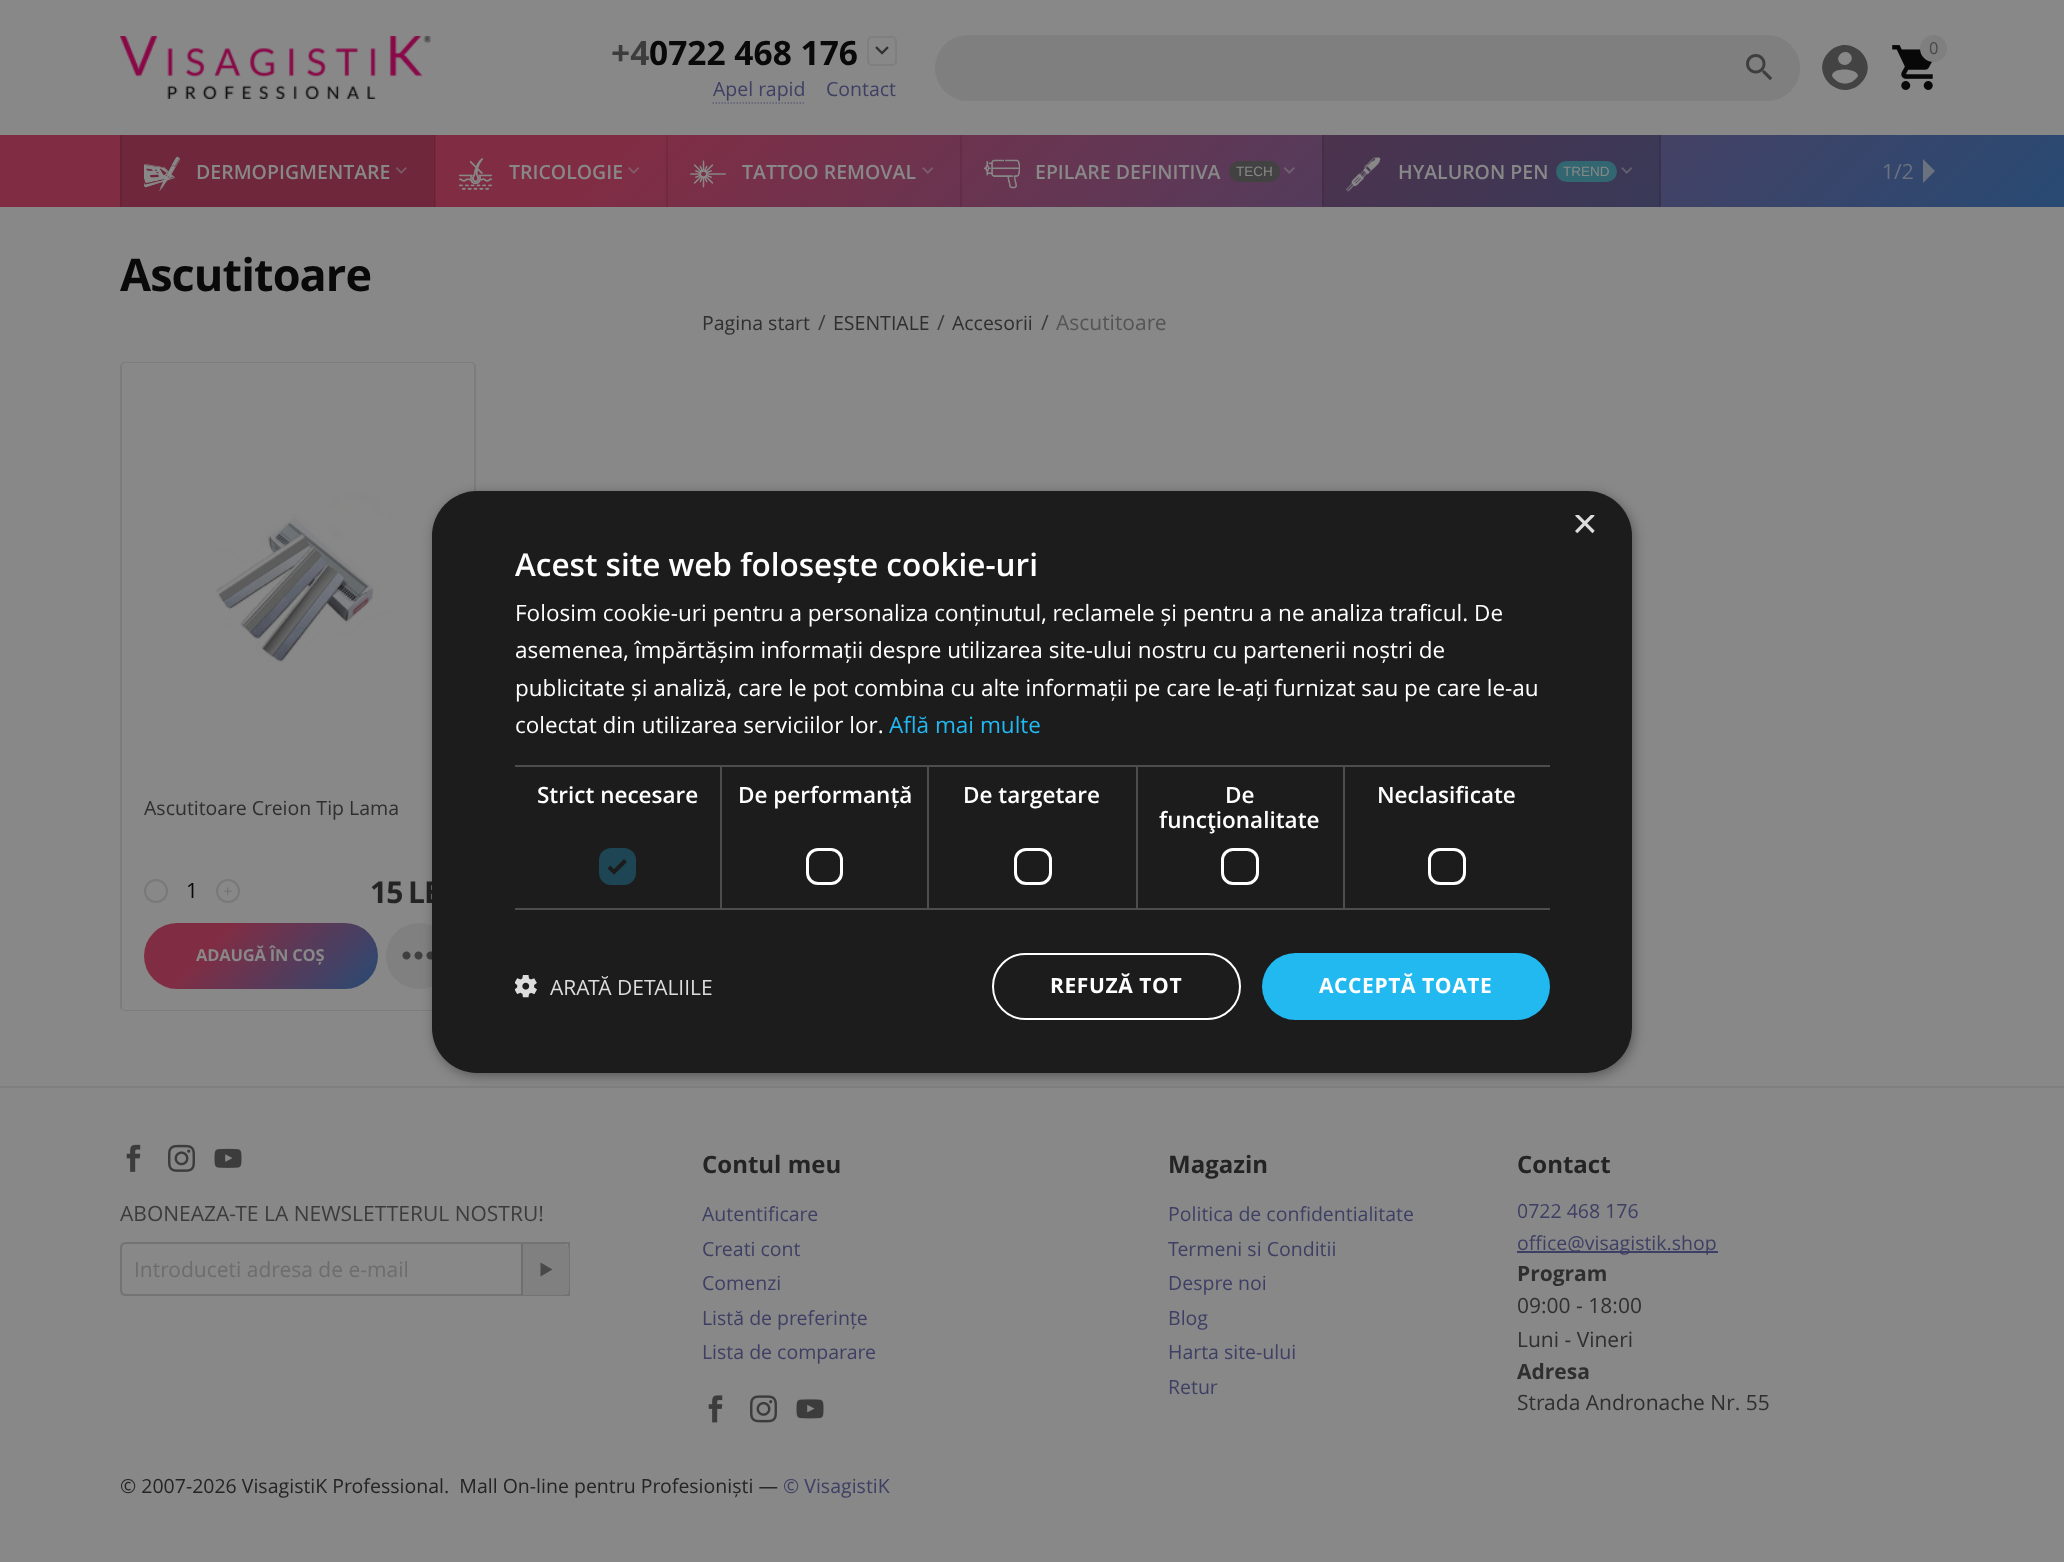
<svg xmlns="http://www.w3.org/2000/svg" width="2064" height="1562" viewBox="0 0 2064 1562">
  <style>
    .t1 { font: bold 33.5px Open Sans; fill: #3c3c3c; }
    .t2 { font: bold 33.5px Open Sans; fill: #090909; }
    .t3 { font: 19.5px Open Sans; fill: #3e3f64; }
    .t4 { font: 16.5px Open Sans; fill: #494949; }
    .t5 { font: 600 19.5px Open Sans; fill: #888; }
    .t6 { font: 13.5px Liberation Sans; fill: #888; }
    .t7 { font: 21px Open Sans; fill: #6b717f; }
    .t8 { font: bold 45px Open Sans; letter-spacing: -0.9px; fill: #090909; }
    .t9 { font: 19.5px Open Sans; fill: #2f2f2f; }
    .t10 { font: 21px Open Sans; fill: #3c3c3c; }
    .t11 { font: 21px Open Sans; fill: #555; }
    .t12 { font: 21px Open Sans; fill: #090909; }
    .t13 { font: 16.5px Open Sans; fill: #737373; }
    .t14 { font: bold 30px Open Sans; letter-spacing: -1px; fill: #242424; }
    .t15 { font: bold 16.5px Open Sans; letter-spacing: -0.2px; fill: #888; }
    .t16 { font: 21px Open Sans; fill: #6d6d6d; }
    .t17 { font: bold 24px Open Sans; fill: #242424; }
    .t18 { font: bold 21px Open Sans; fill: #2f2f2f; }
    .t19 { font: 21px Open Sans; fill: #2f2f2f; }
    .t20 { font: 19.5px Open Sans; fill: #242424; }
    .t21 { font: 44px Liberation Sans; fill: #ddd; }
    .t22 { font: 600 31.5px Open Sans; fill: #fff; }
    .t23 { font: 22.5px Open Sans; fill: #fff; }
    .t24 { font: 22.5px Open Sans; fill: #22b8f0; }
    .t25 { font: 600 22.5px Open Sans; fill: #fff; }
    .t26 { font: 21px Open Sans; fill: #ddd; }
    .t27 { font: bold 21px Open Sans; letter-spacing: 0.6px; fill: #fff; }
  </style>
  <defs>
    <linearGradient id="g1" gradientUnits="userSpaceOnUse" x1="498" y1="-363" x2="1566" y2="705"><stop offset="0.3" stop-color="#802d44"/><stop offset="1" stop-color="#284a73"/></linearGradient>
    <linearGradient id="g2" gradientUnits="userSpaceOnUse" x1="498" y1="-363" x2="1566" y2="705"><stop offset="0.3" stop-color="#6e273b"/><stop offset="1" stop-color="#244063"/></linearGradient>
    <linearGradient id="g3" gradientUnits="userSpaceOnUse" x1="498" y1="-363" x2="1566" y2="705"><stop offset="0.3" stop-color="#662336"/><stop offset="1" stop-color="#273958"/></linearGradient>
    <linearGradient id="g4" gradientUnits="userSpaceOnUse" x1="498" y1="-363" x2="1566" y2="705"><stop offset="0.3" stop-color="#75283d"/><stop offset="1" stop-color="#2b4166"/></linearGradient>
    <linearGradient id="g5" gradientUnits="userSpaceOnUse" x1="498" y1="-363" x2="1566" y2="705"><stop offset="0.3" stop-color="#652435"/><stop offset="1" stop-color="#263858"/></linearGradient>
    <linearGradient id="g6" gradientUnits="userSpaceOnUse" x1="186" y1="881" x2="336" y2="1031"><stop offset="0.3" stop-color="#802d44"/><stop offset="1" stop-color="#284a73"/></linearGradient>
    <clipPath id="clip1"><rect x="1572" y="515" width="23" height="22"/></clipPath>
  </defs>
  <rect width="100%" height="100%" fill="#888"/>
  <image x="120" y="36" width="311" height="63" href="images/1.png"/>
  <text x="611" y="65" class="t1">+4</text>
  <text x="649" y="65" class="t2">0722 468 176</text>
  <rect x="868" y="37" width="28" height="28" rx="4" fill="none" stroke="#7f7f7f" stroke-width="2"/>
  <image x="875" y="46" width="14" height="9" href="images/2.png"/>
  <text x="713" y="96" class="t3">Apel rapid</text>
  <path d="M712.5 103H805.5" fill="none" stroke="#606175" stroke-width="1.5" stroke-dasharray="1.5 1.5"/>
  <text x="826" y="96" class="t3">Contact</text>
  <rect x="935" y="35" width="865" height="66" rx="33" fill="#7f7f7f"/>
  <image x="1746" y="54" width="26" height="26" href="images/3.png"/>
  <path d="M1832 76C1838 86 1852 86 1858 76C1858 68 1832 67 1832 76ZM1850 54C1844 48 1834 57 1840 63C1846 69 1856 60 1850 54ZM1829 52C1850 31 1882 62 1861 83C1840 104 1808 73 1829 52Z" fill="#434343"/>
  <image x="1892" y="45" width="41" height="45" href="images/4.png"/>
  <circle cx="1933.5" cy="48.5" r="13.5" fill="#7f7f7f"/>
  <text x="1929" y="54" class="t4">0</text>
  <rect x="0" y="135" width="2064" height="72" fill="url(#g1)"/>
  <rect x="1324" y="135" width="335" height="72" fill="url(#g2)"/>
  <rect x="1322" y="135" width="2" height="72" fill="url(#g3)"/>
  <rect x="960" y="135" width="2" height="72" fill="url(#g4)"/>
  <rect x="666" y="135" width="2" height="72" fill="url(#g4)"/>
  <rect x="435" y="135" width="1" height="72" fill="url(#g4)"/>
  <rect x="1659" y="135" width="2" height="72" fill="url(#g5)"/>
  <rect x="122" y="135" width="312" height="72" fill="#6e273b"/>
  <rect x="434" y="135" width="1" height="72" fill="#662336"/>
  <rect x="120" y="135" width="2" height="72" fill="#662336"/>
  <image x="144" y="156" width="36" height="35" href="images/5.png"/>
  <text x="196" y="179" class="t5">DERMOPIGMENTARE</text>
  <image x="395" y="167" width="12" height="7" href="images/6.png"/>
  <image x="458" y="158" width="35" height="32" href="images/7.png"/>
  <text x="509" y="179" class="t5">TRICOLOGIE</text>
  <image x="628" y="167" width="12" height="7" href="images/8.png"/>
  <image x="690" y="160" width="36" height="28" href="images/9.png"/>
  <text x="742" y="179" class="t5">TATTOO REMOVAL</text>
  <image x="922" y="167" width="12" height="7" href="images/10.png"/>
  <image x="984" y="159" width="36" height="30" href="images/11.png"/>
  <text x="1035" y="179" class="t5">EPILARE DEFINITIVA</text>
  <rect x="1229" y="161" width="51" height="21" rx="10.5" fill="#424242"/>
  <text x="1236" y="176" class="t6">TECH</text>
  <image x="1283" y="167" width="12" height="7" href="images/12.png"/>
  <image x="1345" y="156" width="36" height="36" href="images/13.png"/>
  <text x="1398" y="179" class="t5">HYALURON PEN</text>
  <rect x="1556" y="161" width="61" height="21" rx="10.5" fill="#326671"/>
  <text x="1563" y="176" class="t6">TREND</text>
  <image x="1621" y="167" width="12" height="7" href="images/14.png"/>
  <text x="1882" y="179" class="t7">1/2</text>
  <path d="M1923 183V159L1935 171Z" fill="#888888a6"/>
  <text x="120" y="291" class="t8">Ascutitoare</text>
  <text x="702" y="330" class="t9">Pagina start</text>
  <text x="818" y="330" class="t10">/</text>
  <text x="833" y="330" class="t9">ESENTIALE</text>
  <text x="937" y="330" class="t10">/</text>
  <text x="952" y="330" class="t9">Accesorii</text>
  <text x="1041" y="330" class="t10">/</text>
  <text x="1056" y="330" class="t11">Ascutitoare</text>
  <rect x="121" y="363" width="354" height="647" rx="4" fill="none" stroke="#7c7c7c" stroke-width="2"/>
  <rect x="122" y="363" width="352" height="647" rx="3" fill="#888"/>
  <image x="216" y="494" width="176" height="168" href="images/15.png"/>
  <text x="144" y="815" class="t9">Ascutitoare Creion Tip Lama</text>
  <circle cx="156" cy="891" r="11" fill="none" stroke="#797979" stroke-width="2"/>
  <text x="186" y="898" class="t12">1</text>
  <circle cx="228" cy="891" r="11" fill="none" stroke="#797979" stroke-width="2"/>
  <text x="223" y="897" class="t13">+</text>
  <text x="370" y="903" class="t14">15</text>
  <text x="408" y="903" class="t14">LE</text>
  <rect x="144" y="923" width="234" height="66" rx="33" fill="url(#g6)"/>
  <text x="196" y="961" class="t15">ADAUGĂ ÎN COȘ</text>
  <circle cx="419" cy="956" r="33" fill="#808080"/>
  <image x="402" y="951" width="30" height="9" href="images/16.png"/>
  <rect x="0" y="1086" width="2064" height="2" fill="#7f7f7f"/>
  <image x="126" y="1144" width="15" height="28" href="images/17.png"/>
  <image x="168" y="1144" width="27" height="28" href="images/18.png"/>
  <image x="214" y="1148" width="28" height="20" href="images/19.png"/>
  <text x="120" y="1221" class="t10">ABONEAZA-TE LA NEWSLETTERUL NOSTRU!</text>
  <path d="M126 1243H569V1295H126C123 1295 121 1293 121 1290V1248C121 1245 123 1243 126 1243Z" fill="none" stroke="#737373" stroke-width="2"/>
  <text x="134" y="1277" class="t16">Introduceti adresa de e-mail</text>
  <path d="M521 1244H563C566.5 1244 569 1246.5 569 1250V1289C569 1292.5 566.5 1295 563 1295H521Z" fill="#808080"/>
  <rect x="521" y="1244" width="2" height="51" fill="#6f6f6f"/>
  <path d="M540.5 1262.5L552.5 1269.5L540.5 1276.5Z" fill="#494949"/>
  <text x="702" y="1173" class="t17">Contul meu</text>
  <text x="702" y="1221" class="t3">Autentificare</text>
  <text x="702" y="1256" class="t3">Creati cont</text>
  <text x="702" y="1290" class="t3">Comenzi</text>
  <text x="702" y="1325" class="t3">Listă de preferințe</text>
  <text x="702" y="1359" class="t3">Lista de comparare</text>
  <image x="708" y="1395" width="15" height="28" href="images/20.png"/>
  <image x="750" y="1395" width="27" height="28" href="images/21.png"/>
  <image x="796" y="1399" width="28" height="20" href="images/22.png"/>
  <text x="1168" y="1173" class="t17">Magazin</text>
  <text x="1168" y="1221" class="t3">Politica de confidentialitate</text>
  <text x="1168" y="1256" class="t3">Termeni si Conditii</text>
  <text x="1168" y="1290" class="t3">Despre noi</text>
  <text x="1168" y="1325" class="t3">Blog</text>
  <text x="1168" y="1359" class="t3">Harta site-ului</text>
  <text x="1168" y="1394" class="t3">Retur</text>
  <text x="1517" y="1173" class="t17">Contact</text>
  <text x="1517" y="1218" class="t3">0722 468 176</text>
  <rect x="1517" y="1251" width="201" height="2" fill="#3e3f64"/>
  <text x="1517" y="1250" class="t3">office@visagistik.shop</text>
  <text x="1517" y="1281" class="t18">Program</text>
  <text x="1517" y="1313" class="t19">09:00 - 18:00</text>
  <text x="1517" y="1347" class="t19">Luni - Vineri</text>
  <text x="1517" y="1379" class="t18">Adresa</text>
  <text x="1517" y="1410" class="t19">Strada Andronache Nr. 55</text>
  <text x="120" y="1493" class="t20" xml:space="preserve">© 2007-2026 VisagistiK Professional.  Mall On-line pentru Profesioniști —</text>
  <text x="783" y="1493" class="t3">© VisagistiK</text>
  <rect x="434" y="494" width="1200" height="582" rx="45" fill="#00000059" filter="blur(6px)"/>
  <rect x="432" y="491" width="1200" height="582" rx="45" fill="#1c1c1c"/>
  <g clip-path="url(#clip1)">
    <text x="1572" y="538" class="t21">×</text>
  </g>
  <text x="515" y="576" class="t22">Acest site web folosește cookie-uri</text>
  <text x="515" y="621" class="t23">Folosim cookie-uri pentru a personaliza conținutul, reclamele și pentru a ne analiza traficul. De</text>
  <text x="515" y="658" class="t23">asemenea, împărtășim informații despre utilizarea site-ului nostru cu partenerii noștri de</text>
  <text x="515" y="696" class="t23">publicitate și analiză, care le pot combina cu alte informații pe care le-ați furnizat sau pe care le-au</text>
  <text x="515" y="733" class="t23">colectat din utilizarea serviciilor lor.</text>
  <text x="889" y="733" class="t24">Află mai multe</text>
  <rect x="515" y="765" width="622" height="2" fill="#4d4d4d"/>
  <rect x="720" y="765" width="2" height="144" fill="#4d4d4d"/>
  <rect x="515" y="908" width="207" height="2" fill="#4d4d4d"/>
  <text x="537" y="803" class="t25">Strict necesare</text>
  <rect x="599" y="848" width="37" height="37" rx="12" fill="#1e4553"/>
  <path d="M609 867L614 872L625.5 860.5" fill="none" stroke="#1c1c1c" stroke-width="3.9"/>
  <rect x="927" y="765" width="2" height="144" fill="#4d4d4d"/>
  <rect x="722" y="908" width="207" height="2" fill="#4d4d4d"/>
  <text x="738" y="803" class="t25">De performanță</text>
  <rect x="807.5" y="849.5" width="34" height="34" rx="10.5" fill="none" stroke="#fff" stroke-width="3"/>
  <rect x="1136" y="765" width="2" height="144" fill="#4d4d4d"/>
  <rect x="929" y="908" width="208" height="2" fill="#4d4d4d"/>
  <text x="963" y="803" class="t25">De targetare</text>
  <rect x="1015.5" y="849.5" width="35" height="34" rx="10.5" fill="none" stroke="#fff" stroke-width="3"/>
  <rect x="1137" y="765" width="207" height="2" fill="#4d4d4d"/>
  <rect x="1343" y="765" width="2" height="144" fill="#4d4d4d"/>
  <rect x="1137" y="908" width="413" height="2" fill="#4d4d4d"/>
  <text x="1225" y="803" class="t25">De</text>
  <text x="1159" y="828" class="t25">funcţionalitate</text>
  <rect x="1222.5" y="849.5" width="35" height="34" rx="10.5" fill="none" stroke="#fff" stroke-width="3"/>
  <rect x="1344" y="765" width="206" height="2" fill="#4d4d4d"/>
  <text x="1377" y="803" class="t25">Neclasificate</text>
  <rect x="1429.5" y="849.5" width="35" height="34" rx="10.5" fill="none" stroke="#fff" stroke-width="3"/>
  <image x="515" y="975" width="22" height="23" href="images/23.png"/>
  <text x="550" y="995" class="t26">ARATĂ DETALIILE</text>
  <rect x="993" y="954" width="247" height="65" rx="32.5" fill="none" stroke="#fff" stroke-width="2"/>
  <text x="1050" y="993" class="t27">REFUZĂ TOT</text>
  <rect x="1262" y="953" width="288" height="67" rx="33.5" fill="#22b8f0"/>
  <text x="1319" y="993" class="t27">ACCEPTĂ TOATE</text>
</svg>
